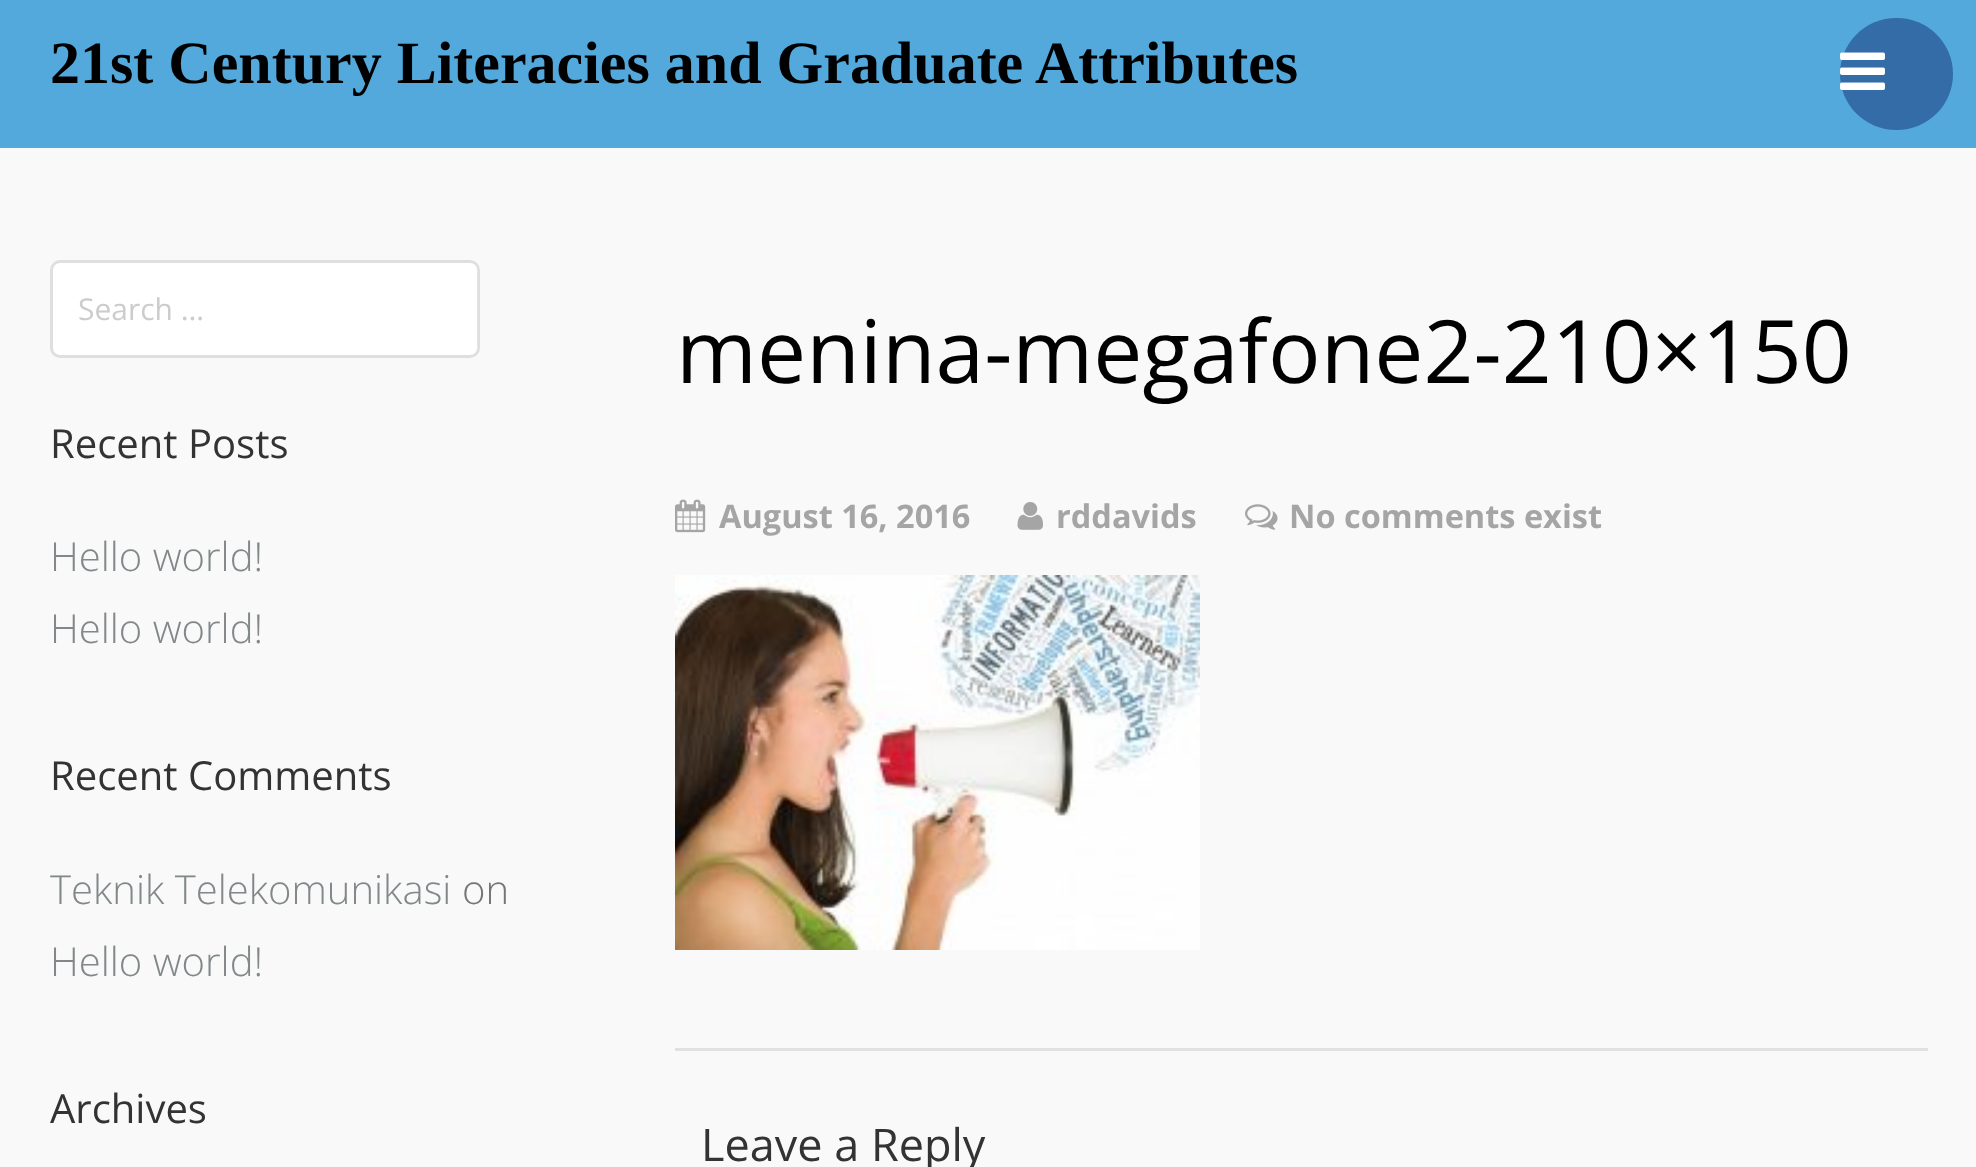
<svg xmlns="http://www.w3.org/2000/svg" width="1976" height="1167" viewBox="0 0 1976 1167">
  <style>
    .t1 { font: bold 60px Liberation Serif; fill: #000; }
    .t2 { font: 30px Open Sans; fill: #ccc; }
    .t3 { font: 40px Open Sans; fill: #333; }
    .t4 { font: 300 40px Open Sans; fill: #82888a; }
    .t5 { font: 300 40px Open Sans; fill: #757575; }
    .t6 { font: 87.5px Open Sans; fill: #000; }
    .t7 { font: bold 32.5px Open Sans; fill: #a5a5a5; }
    .t8 { font: 45px Open Sans; fill: #333; }
  </style>
  <rect width="100%" height="100%" fill="#f9f9f9"/>
  <rect x="0" y="0" width="1976" height="148" fill="#53a9db"/>
  <text x="50" y="83" class="t1">21st Century Literacies and Graduate Attributes</text>
  <rect x="1840" y="18" width="113" height="112" rx="56" fill="#336ca6"/>
  <image x="1840" y="52" width="45" height="38" href="images/1.png"/>
  <rect x="53" y="263" width="425" height="92" rx="8" fill="#fff"/>
  <rect x="51.5" y="261.5" width="427" height="95" rx="8.5" fill="none" stroke="#0000001a" stroke-width="3"/>
  <text x="78" y="320" class="t2">Search …</text>
  <text x="50" y="458" class="t3">Recent Posts</text>
  <text x="50" y="571" class="t4">Hello world!</text>
  <text x="50" y="643" class="t4">Hello world!</text>
  <text x="50" y="790" class="t3">Recent Comments</text>
  <text x="50" y="904" class="t4">Teknik Telekomunikasi</text>
  <text x="462" y="904" class="t5">on</text>
  <text x="50" y="976" class="t4">Hello world!</text>
  <text x="50" y="1123" class="t3">Archives</text>
  <text x="676" y="383" class="t6">menina-megafone2-210×150</text>
  <image x="675" y="499" width="31" height="34" href="images/2.png"/>
  <text x="719" y="528" class="t7">August 16, 2016</text>
  <image x="1017" y="502" width="26" height="28" href="images/3.png"/>
  <text x="1056" y="528" class="t7">rddavids</text>
  <image x="1245" y="504" width="33" height="26" href="images/4.png"/>
  <text x="1289" y="528" class="t7">No comments exist</text>
  <image x="675" y="575" width="525" height="375" href="images/5.png"/>
  <rect x="675" y="1048" width="1253" height="3" fill="#e3e0e0"/>
  <text x="701" y="1161" class="t8">Leave a Reply</text>
</svg>
